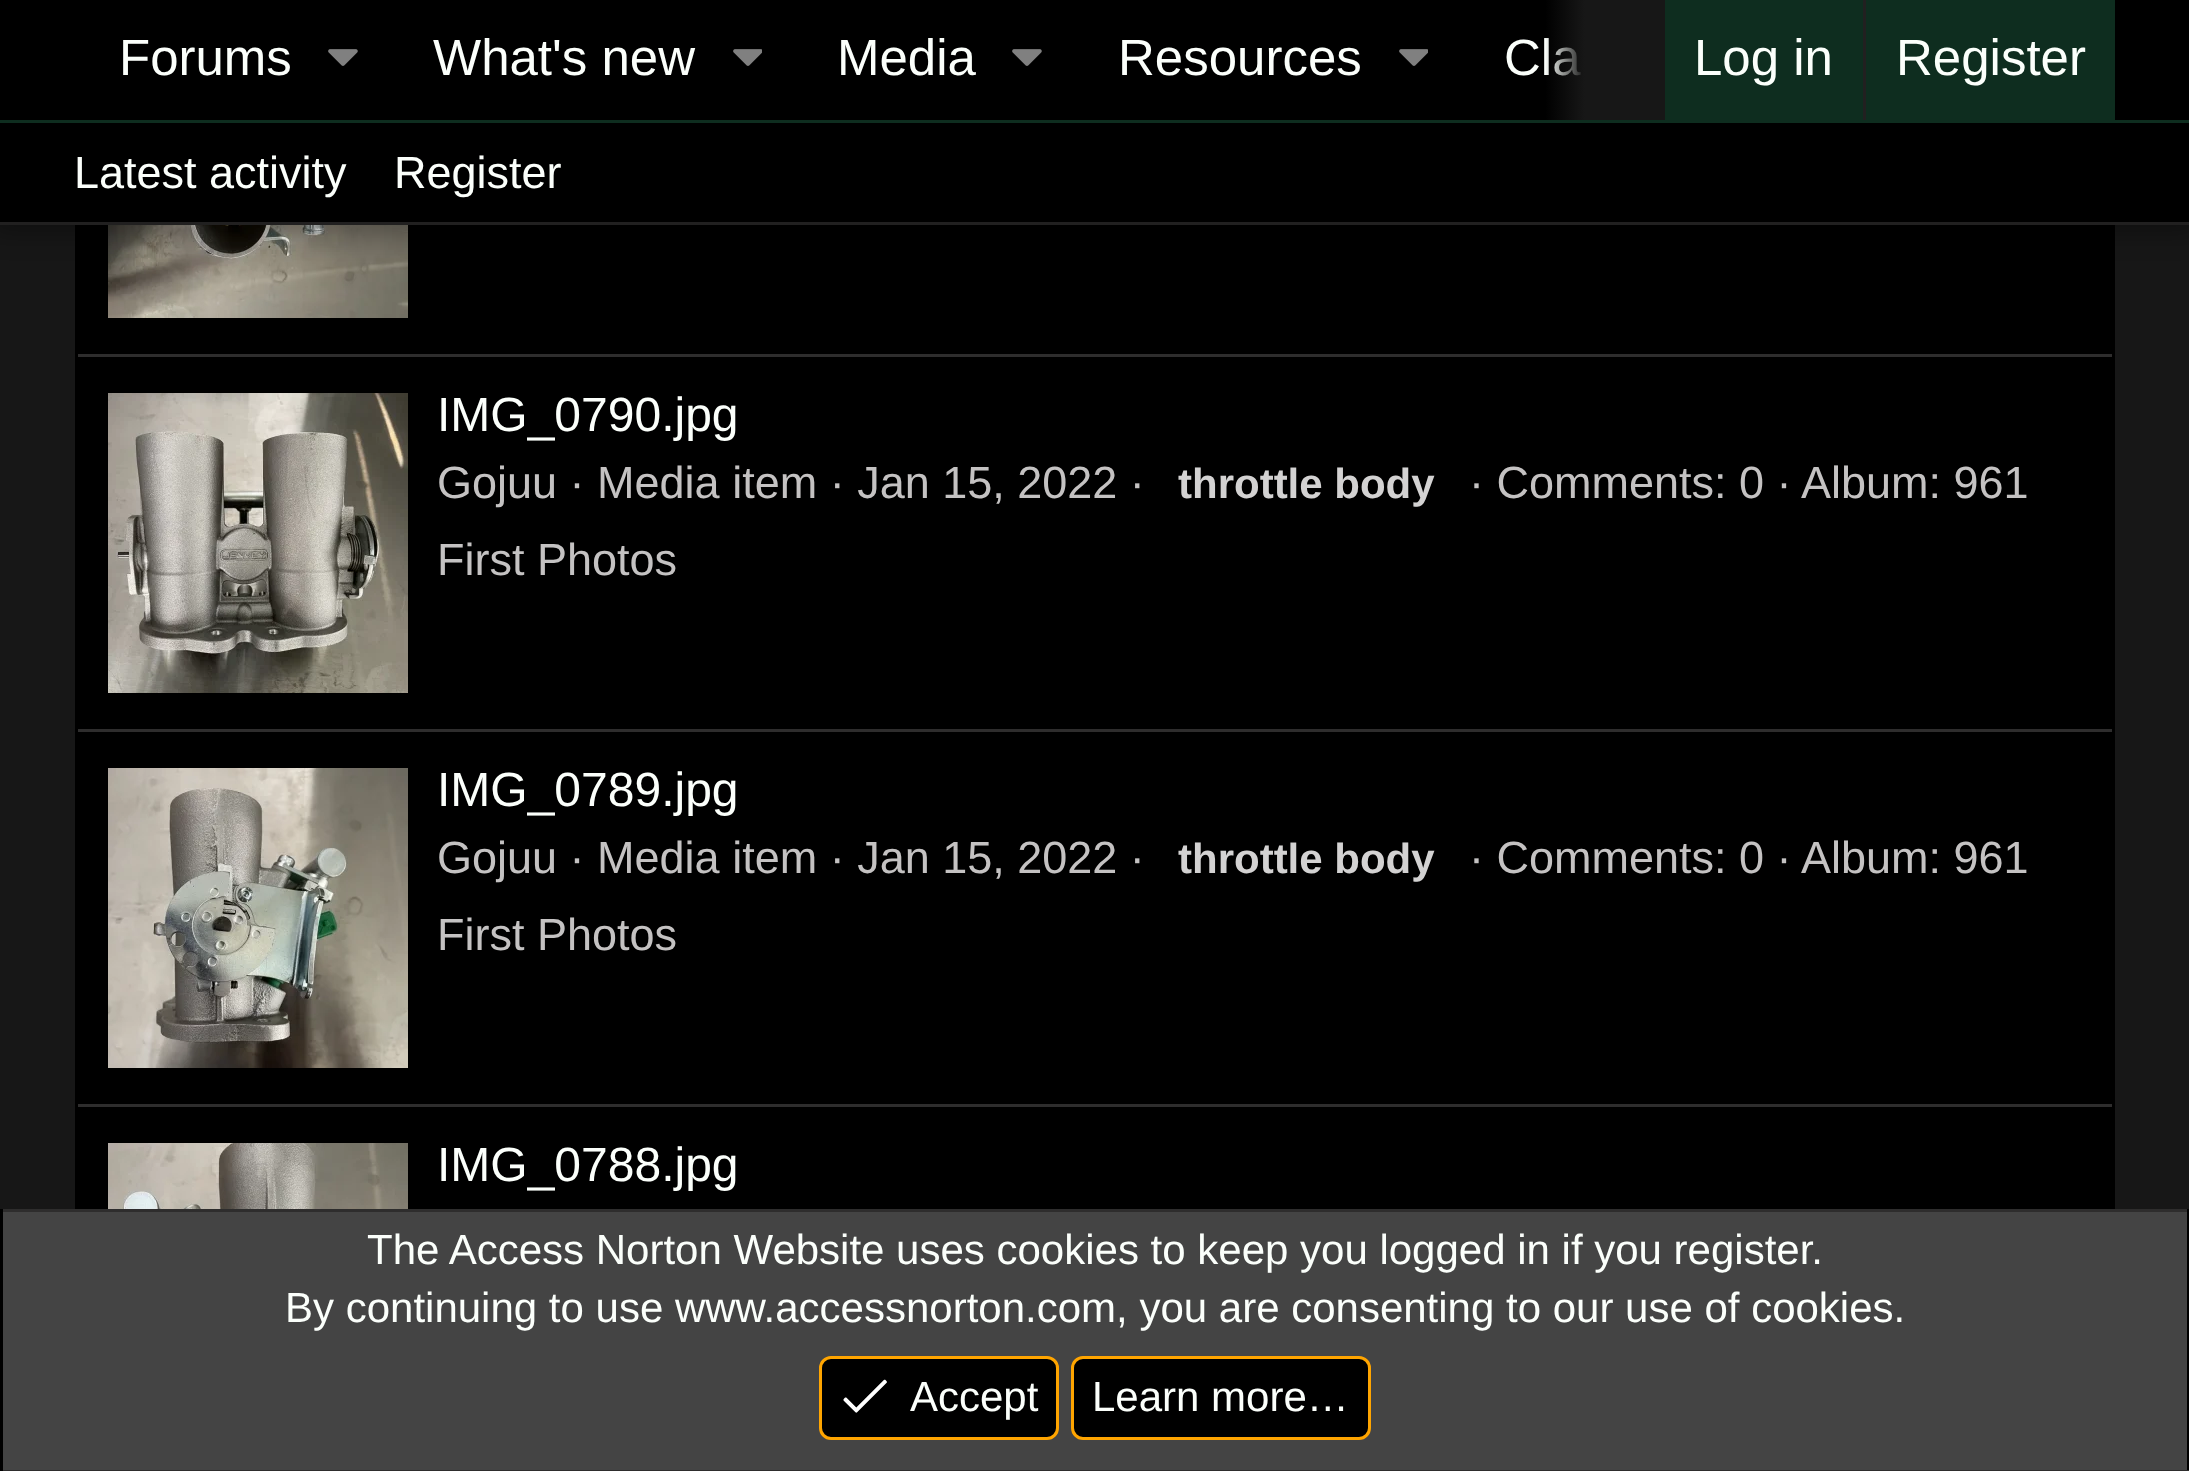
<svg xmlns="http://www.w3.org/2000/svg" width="2189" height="1471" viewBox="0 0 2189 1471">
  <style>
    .t1 { font: 51px Liberation Sans; fill: #fbfffb; }
    .t2 { font: 45px Liberation Sans; fill: #fbfffb; }
    .t3 { font: 48px Liberation Sans; fill: #fbfffb; }
    .t4 { font: 45px Liberation Sans; fill: #c4c2c2; }
    .t5 { font: bold 42px Liberation Sans; fill: #d3d2d2; }
    .t6 { font: 42px Liberation Sans; fill: #fbfffb; }
  </style>
  <defs>
    <linearGradient id="g1" gradientUnits="userSpaceOnUse" x1="1545" y1="60" x2="1665" y2="60"><stop offset="0" stop-color="#171717" stop-opacity="0"/><stop offset="0.33" stop-color="#171717"/></linearGradient>
  </defs>
  <rect width="100%" height="100%" fill="#171717"/>
  <rect x="75" y="225" width="2040" height="984" fill="#000"/>
  <image x="108" y="225" width="300" height="93" href="images/3.png"/>
  <rect x="-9" y="-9" width="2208" height="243" fill="#0000004d" filter="blur(12px)"/>
  <rect x="0" y="0" width="2189" height="120" fill="#000"/>
  <text x="119" y="75" class="t1">Forums</text>
  <image x="328" y="49" width="30" height="17" href="images/1.png"/>
  <text x="433" y="75" class="t1">What's new</text>
  <image x="733" y="49" width="29" height="17" href="images/2.png"/>
  <text x="837" y="75" class="t1">Media</text>
  <image x="1012" y="49" width="30" height="17" href="images/1.png"/>
  <text x="1118" y="75" class="t1">Resources</text>
  <image x="1399" y="49" width="29" height="17" href="images/2.png"/>
  <text x="1504" y="75" class="t1">Cla</text>
  <rect x="1546" y="0" width="119" height="120" fill="url(#g1)"/>
  <rect x="1665" y="0" width="450" height="120" fill="#0e2d1f"/>
  <text x="1694" y="75" class="t1">Log in</text>
  <rect x="1863" y="0" width="3" height="120" fill="#212020"/>
  <text x="1896" y="75" class="t1">Register</text>
  <rect x="0" y="123" width="2189" height="99" fill="#000"/>
  <rect x="0" y="120" width="2189" height="3" fill="#0e2d1f"/>
  <rect x="0" y="222" width="2189" height="3" fill="#212020"/>
  <text x="74" y="188" class="t2">Latest activity</text>
  <text x="394" y="188" class="t2">Register</text>
  <rect x="78" y="354" width="2034" height="3" fill="#2e2d2d"/>
  <image x="108" y="393" width="300" height="300" href="images/4.png"/>
  <text x="437" y="431" class="t3">IMG_0790.jpg</text>
  <text x="437" y="498" class="t4">Gojuu · Media item · Jan 15, 2022 ·</text>
  <text x="1178" y="498" class="t5">throttle body</text>
  <text x="1469" y="498" class="t4">· Comments: 0 ·</text>
  <text x="1801" y="498" class="t4">Album: 961</text>
  <text x="437" y="575" class="t4">First Photos</text>
  <rect x="78" y="729" width="2034" height="3" fill="#2e2d2d"/>
  <image x="108" y="768" width="300" height="300" href="images/5.png"/>
  <text x="437" y="806" class="t3">IMG_0789.jpg</text>
  <text x="437" y="873" class="t4">Gojuu · Media item · Jan 15, 2022 ·</text>
  <text x="1178" y="873" class="t5">throttle body</text>
  <text x="1469" y="873" class="t4">· Comments: 0 ·</text>
  <text x="1801" y="873" class="t4">Album: 961</text>
  <text x="437" y="950" class="t4">First Photos</text>
  <rect x="78" y="1104" width="2034" height="3" fill="#2e2d2d"/>
  <image x="108" y="1143" width="300" height="66" href="images/6.png"/>
  <text x="437" y="1181" class="t3">IMG_0788.jpg</text>
  <rect x="3" y="1212" width="2184" height="258" fill="#444"/>
  <rect x="0" y="1209" width="2189" height="3" fill="#2e2d2d"/>
  <rect x="2187" y="1209" width="2" height="262" fill="#000"/>
  <rect x="0" y="1470" width="2189" height="1" fill="#2e2d2d"/>
  <rect x="0" y="1209" width="3" height="262" fill="#000"/>
  <text x="367" y="1264" class="t6">The Access Norton Website uses cookies to keep you logged in if you register.</text>
  <text x="285" y="1322" class="t6">By continuing to use www.accessnorton.com, you are consenting to our use of cookies.</text>
  <rect x="820.5" y="1357.5" width="237" height="81" rx="10.5" fill="#000" stroke="#ffa500" stroke-width="3"/>
  <image x="843" y="1379" width="44" height="34" href="images/7.png"/>
  <text x="910" y="1411" class="t6">Accept</text>
  <rect x="1072.5" y="1357.5" width="297" height="81" rx="10.5" fill="#000" stroke="#ffa500" stroke-width="3"/>
  <text x="1092" y="1411" class="t6">Learn more…</text>
</svg>
